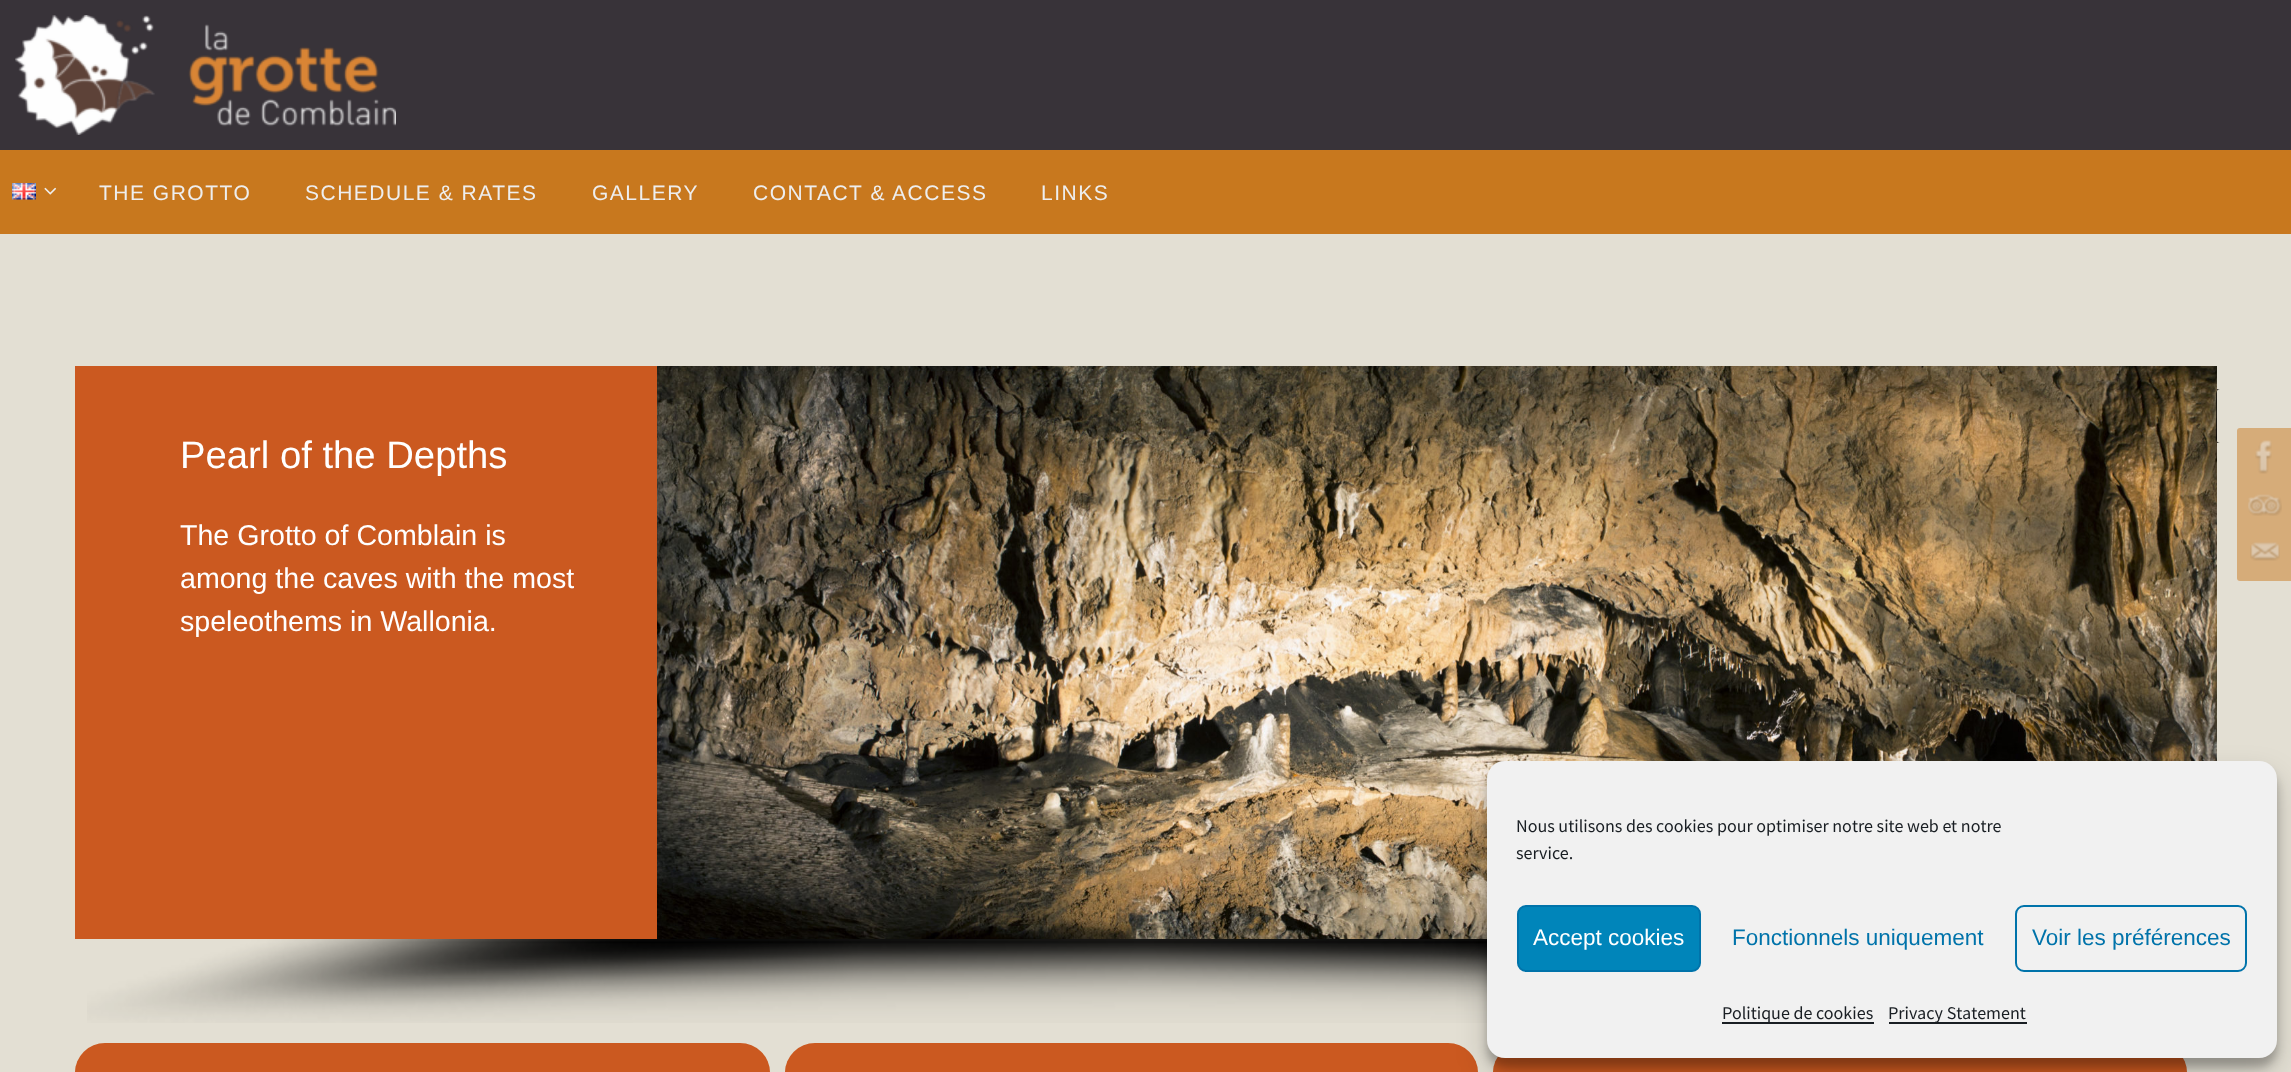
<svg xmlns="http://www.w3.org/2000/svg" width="2291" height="1072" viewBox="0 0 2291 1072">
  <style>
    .t1 { font: 21px Liberation Sans; letter-spacing: 1.5px; fill: #eee; }
    .t2 { font: 38.25px Liberation Sans; fill: #fff; }
    .t3 { font: 28.6px Liberation Sans; fill: #fff; }
    .t4 { font: 18px Source Sans Pro; fill: #191e23; }
    .t5 { font: 22.5px Liberation Sans; fill: #fff; }
    .t6 { font: 22.5px Liberation Sans; fill: #0073aa; }
  </style>
  <rect width="100%" height="100%" fill="#e3dfd3"/>
  <rect x="0" y="0" width="2291" height="150" fill="#383339"/>
  <image x="15" y="15" width="381" height="120" href="images/1.png"/>
  <rect x="0" y="150" width="2291" height="84" fill="#c8781e"/>
  <image x="12" y="183" width="24" height="17" href="images/2.png"/>
  <image x="44" y="187" width="13" height="8" href="images/3.png"/>
  <text x="99" y="200" class="t1">THE GROTTO</text>
  <text x="305" y="200" class="t1">SCHEDULE &amp; RATES</text>
  <text x="592" y="200" class="t1">GALLERY</text>
  <text x="753" y="200" class="t1">CONTACT &amp; ACCESS</text>
  <text x="1041" y="200" class="t1">LINKS</text>
  <image x="657" y="366" width="1560" height="573" href="images/4.png"/>
  <path d="M2221 389H2217V443H2221C2218 443 2216 441 2216 438V394C2216 391 2218 389 2221 389Z" fill="#000000ab"/>
  <rect x="75" y="366" width="582" height="573" fill="#cb5920"/>
  <text x="180" y="468" class="t2">Pearl of the Depths</text>
  <text x="180" y="545" class="t3">The Grotto of Comblain is</text>
  <text x="180" y="588" class="t3">among the caves with the most</text>
  <text x="180" y="631" class="t3">speleothems in Wallonia.</text>
  <image x="87" y="939" width="1400" height="84" href="images/5.png"/>
  <rect x="75" y="1043" width="695" height="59" rx="30" fill="#cb5920"/>
  <rect x="785" y="1043" width="693" height="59" rx="30" fill="#cb5920"/>
  <rect x="1493" y="1043" width="694" height="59" rx="30" fill="#cb5920"/>
  <rect x="2237" y="428" width="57" height="57" rx="3" fill="#d6ac79"/>
  <image x="2255" y="440" width="17" height="34" href="images/6.png"/>
  <rect x="2237" y="476" width="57" height="57" rx="3" fill="#d6ac79"/>
  <image x="2248" y="494" width="34" height="22" href="images/7.png"/>
  <rect x="2237" y="524" width="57" height="57" rx="3" fill="#d6ac79"/>
  <image x="2250" y="542" width="30" height="19" href="images/8.png"/>
  <rect x="1487" y="770" width="790" height="297" rx="18" fill="#0000003b" filter="blur(4.5px)"/>
  <rect x="1487" y="776" width="790" height="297" rx="18" fill="#00000030" filter="blur(15px)"/>
  <rect x="1487" y="761" width="790" height="297" rx="18" fill="#f1f1f1"/>
  <text x="1516" y="832" class="t4">Nous utilisons des cookies pour optimiser notre site web et notre</text>
  <text x="1516" y="859" class="t4">service.</text>
  <rect x="1518" y="906" width="182" height="65" rx="8" fill="#0085ba" stroke="#0073aa" stroke-width="2"/>
  <text x="1533" y="945" class="t5">Accept cookies</text>
  <text x="1732" y="945" class="t6">Fonctionnels uniquement</text>
  <rect x="2016" y="906" width="230" height="65" rx="8" fill="none" stroke="#0073aa" stroke-width="2"/>
  <text x="2032" y="945" class="t6">Voir les préférences</text>
  <rect x="1722" y="1022" width="152" height="2" fill="#191e23"/>
  <text x="1722" y="1019" class="t4">Politique de cookies</text>
  <rect x="1889" y="1022" width="138" height="2" fill="#191e23"/>
  <text x="1888" y="1019" class="t4">Privacy Statement</text>
</svg>
